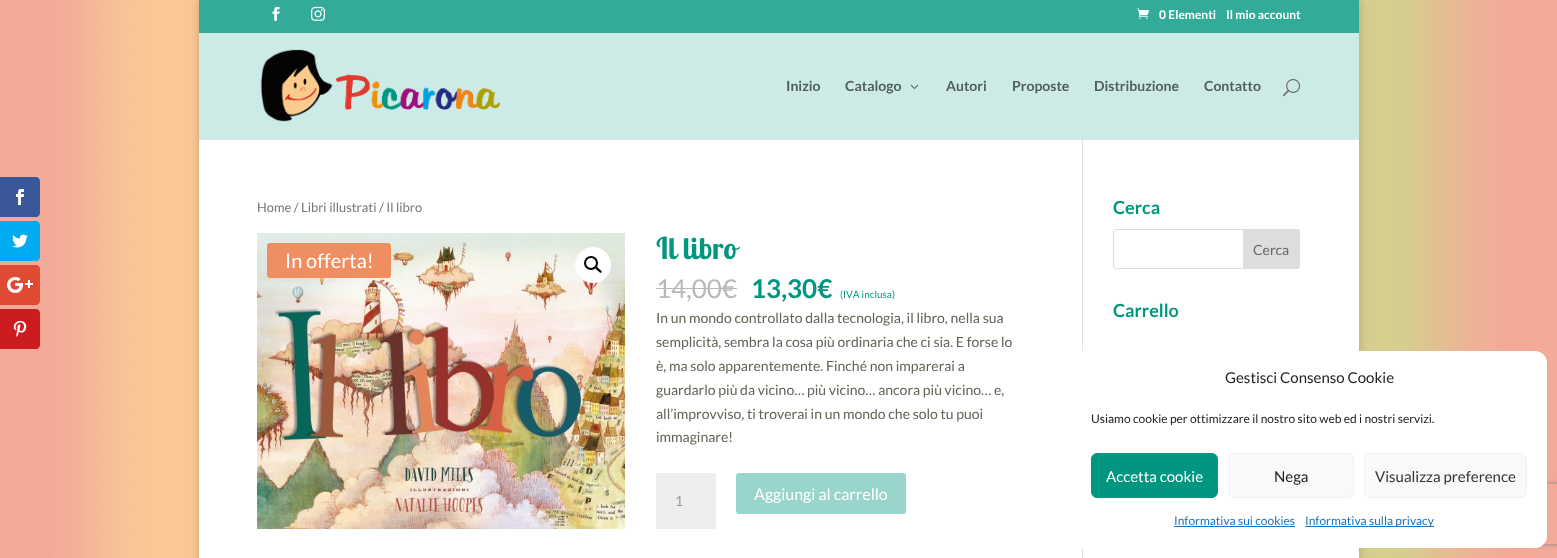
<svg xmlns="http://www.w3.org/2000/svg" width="1557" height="558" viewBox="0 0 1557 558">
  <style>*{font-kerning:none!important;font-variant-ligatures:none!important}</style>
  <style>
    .t1 { font: bold 12px Lato; fill: #fff; }
    .t2 { font: bold 14px Lato; fill: #525e5c; }
    .t3 { font: 12.9px Lato; fill: #767676; }
    .t4 { font: bold 30px Lobster Two; fill: #009680; }
    .t5 { font: 26px Lato; fill: #b8b8b8; }
    .t6 { font: bold 26px Lato; fill: #009680; }
    .t7 { font: 10px Lato; fill: #009680; }
    .t8 { font: 14px Lato; fill: #646155; }
    .t9 { font: 14px Lato; fill: #999; }
    .t10 { font: 16px Lato; fill: #fff; }
    .t11 { font: 20px Lato; fill: #fff; }
    .t12 { font: bold 18px Lato; fill: #009680; }
    .t13 { font: 14px Lato; fill: #666; }
    .t14 { font: 15px Lato; fill: #222; }
    .t15 { font: 12px Lato; fill: #222; }
    .t16 { font: 15px Lato; fill: #fff; }
    .t17 { font: 15px Lato; fill: #333; }
    .t18 { font: 12px Lato; fill: #1e73be; }
  </style>
  <defs>
    <clipPath id="clip1"><path d="M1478 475H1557V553H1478ZM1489 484H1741C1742 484 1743 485 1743 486V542C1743 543 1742 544 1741 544H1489C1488 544 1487 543 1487 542V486C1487 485 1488 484 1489 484Z" clip-rule="evenodd"/></clipPath>
  </defs>
  <rect width="100%" height="100%" fill="#fff"/>
  <image x="0" y="0" width="1557" height="558" href="images/1.png"/>
  <path d="M0 177H36C38 177 40 179 40 181V213C40 215 38 217 36 217H0Z" fill="#3a579a"/>
  <image x="16" y="189" width="8" height="16" href="images/2.png"/>
  <path d="M0 221H36C38 221 40 223 40 225V257C40 259 38 261 36 261H0Z" fill="#00abf0"/>
  <image x="12" y="234" width="16" height="14" href="images/3.png"/>
  <path d="M0 265H36C38 265 40 267 40 269V301C40 303 38 305 36 305H0Z" fill="#df4a32"/>
  <image x="7" y="277" width="26" height="16" href="images/4.png"/>
  <path d="M0 309H36C38 309 40 311 40 313V345C40 347 38 349 36 349H0Z" fill="#cd1c1f"/>
  <image x="13" y="321" width="14" height="16" href="images/5.png"/>
  <rect x="199" y="0" width="1160" height="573" fill="#00000033" filter="blur(5px)"/>
  <rect x="199" y="0" width="1160" height="33" fill="#33ab99"/>
  <image x="272" y="6" width="8" height="15" href="images/6.png"/>
  <image x="311" y="6" width="14" height="15" href="images/7.png"/>
  <image x="1137" y="8" width="12" height="11" href="images/8.png"/>
  <text x="1159" y="19" class="t1">0 Elementi</text>
  <text x="1226" y="19" class="t1">Il mio account</text>
  <rect x="199" y="139" width="1160" height="419" fill="#fff"/>
  <rect x="1082" y="138" width="1" height="420" fill="#e2e2e2"/>
  <rect x="199" y="139" width="1160" height="1" fill="#0000001a"/>
  <rect x="199" y="33" width="1160" height="106" fill="#cceae6"/>
  <image x="260" y="49" width="241" height="73" href="images/9.png"/>
  <text x="786" y="91" class="t2">Inizio</text>
  <text x="845" y="91" class="t2">Catalogo</text>
  <image x="910" y="84" width="9" height="5" href="images/10.png"/>
  <text x="946" y="91" class="t2">Autori</text>
  <text x="1012" y="91" class="t2">Proposte</text>
  <text x="1094" y="91" class="t2">Distribuzione</text>
  <text x="1204" y="91" class="t2">Contatto</text>
  <image x="1283" y="79" width="17" height="18" href="images/11.png"/>
  <text x="257" y="212" class="t3">Home / Libri illustrati / Il libro</text>
  <image x="257" y="233" width="368" height="296" href="images/12.png"/>
  <circle cx="593" cy="265" r="18" fill="#fff"/>
  <circle cx="591" cy="263" r="6" fill="none" stroke="#000" stroke-width="2"/>
  <path d="M595.5 267C597 265.5 598.5 268.5 599 269C600 269.5 602.5 271.5 601.5 272.5C600 273.5 598.5 271 597.5 270.5C597 270 594.5 268 595.5 267Z" fill="#000"/>
  <text x="656" y="259" class="t4">Il libro</text>
  <text x="656" y="298" class="t5">14,00€</text>
  <rect x="656" y="288" width="81" height="1" fill="#b8b8b8"/>
  <text x="751" y="298" class="t6">13,30€</text>
  <text x="840" y="298" class="t7">(IVA inclusa)</text>
  <text x="656" y="323" class="t8">In un mondo controllato dalla tecnologia, il libro, nella sua</text>
  <text x="656" y="347" class="t8">semplicità, sembra la cosa più ordinaria che ci sia. E forse lo</text>
  <text x="656" y="371" class="t8">è, ma solo apparentemente. Finché non imparerai a</text>
  <text x="656" y="395" class="t8">guardarlo più da vicino… più vicino… ancora più vicino… e,</text>
  <text x="656" y="419" class="t8">all’improvviso, ti troverai in un mondo che solo tu puoi</text>
  <text x="656" y="442" class="t8">immaginare!</text>
  <rect x="656" y="473" width="60" height="56" fill="#eee"/>
  <text x="675" y="506" class="t9">1</text>
  <rect x="736" y="473" width="170" height="41" rx="3" fill="#99d5cc"/>
  <text x="754" y="500" class="t10">Aggiungi al carrello</text>
  <rect x="267" y="243" width="124" height="35" rx="3" fill="#ef8f61"/>
  <text x="285" y="268" class="t11">In offerta!</text>
  <text x="1113" y="214" class="t12">Cerca</text>
  <rect x="1113.5" y="229.5" width="186" height="39" rx="2.5" fill="none" stroke="#ddd"/>
  <path d="M1243.5 229.5H1297C1298.5 229.5 1299.5 230.5 1299.5 232V266C1299.5 267.5 1298.5 268.5 1297 268.5H1243.5Z" fill="#ddd" stroke="#ddd"/>
  <text x="1253" y="255" class="t13">Cerca</text>
  <text x="1113" y="317" class="t12">Carrello</text>
  <g clip-path="url(#clip1)">
    <rect x="1487" y="484" width="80" height="60" rx="2" fill="#808080" filter="blur(2.5px)"/>
  </g>
  <rect x="1071" y="351" width="476" height="197" rx="12" fill="#fff"/>
  <text x="1225" y="383" class="t14">Gestisci Consenso Cookie</text>
  <text x="1091" y="423" class="t15">Usiamo cookie per ottimizzare il nostro sito web ed i nostri servizi.</text>
  <rect x="1091.5" y="453.5" width="126" height="44" rx="5.5" fill="#009680" stroke="#009680"/>
  <text x="1106" y="482" class="t16">Accetta cookie</text>
  <rect x="1228.5" y="453.5" width="125" height="44" rx="5.5" fill="#f9f9f9" stroke="#f2f2f2"/>
  <text x="1274" y="482" class="t14">Nega</text>
  <rect x="1364.5" y="453.5" width="162" height="44" rx="5.5" fill="#f9f9f9" stroke="#f2f2f2"/>
  <text x="1375" y="482" class="t17">Visualizza preference</text>
  <text x="1174" y="525" class="t18">Informativa sui cookies</text>
  <rect x="1174" y="526" width="121" height="1" fill="#1e73be"/>
  <rect x="1305" y="526" width="129" height="1" fill="#1e73be"/>
  <text x="1305" y="525" class="t18">Informativa sulla privacy</text>
</svg>
